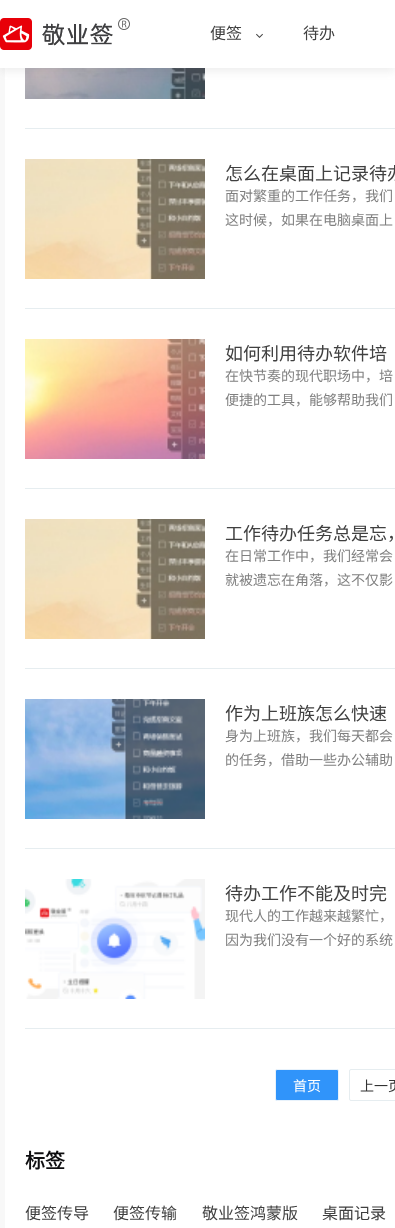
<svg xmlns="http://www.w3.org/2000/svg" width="395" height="1228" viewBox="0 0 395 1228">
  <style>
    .t1 { font: 16px Noto Sans CJK SC; fill: #404040; }
    .t2 { font: 18px Noto Sans CJK SC; fill: #404040; }
    .t3 { font: 14px Noto Sans CJK SC; fill: #808080; }
    .t4 { font: 14px Noto Sans CJK SC; fill: #fff; }
    .t5 { font: 14px Noto Sans CJK SC; fill: #333; }
    .t6 { font: bold 20px Noto Sans CJK SC; fill: #0e0e10; }
  </style>
  <rect width="100%" height="100%" fill="#f8f8f8"/>
  <rect x="5" y="68" width="390" height="1160" fill="#fff"/>
  <image x="25" y="68" width="180" height="31" href="images/3.png"/>
  <rect x="0" y="4" width="395" height="68" fill="#6464641a" filter="blur(4px)"/>
  <rect x="0" y="0" width="395" height="68" fill="#fff"/>
  <image x="0" y="18" width="130" height="32" href="images/1.png"/>
  <text x="210" y="39" class="t1">便签</text>
  <image x="256" y="33" width="7" height="5" href="images/2.png"/>
  <text x="303" y="39" class="t1">待办</text>
  <rect x="25" y="128" width="370" height="1" fill="#e6edf0"/>
  <rect x="25" y="308" width="370" height="1" fill="#e6edf0"/>
  <image x="25" y="159" width="180" height="120" href="images/4.png"/>
  <text x="225" y="180" class="t2">怎么在桌面上记录待办</text>
  <text x="225" y="201" class="t3">面对繁重的工作任务，我们</text>
  <text x="225" y="225" class="t3">这时候，如果在电脑桌面上</text>
  <rect x="25" y="488" width="370" height="1" fill="#e6edf0"/>
  <image x="25" y="339" width="180" height="120" href="images/5.png"/>
  <text x="225" y="360" class="t2">如何利用待办软件培</text>
  <text x="225" y="381" class="t3">在快节奏的现代职场中，培</text>
  <text x="225" y="405" class="t3">便捷的工具，能够帮助我们</text>
  <rect x="25" y="668" width="370" height="1" fill="#e6edf0"/>
  <image x="25" y="519" width="180" height="120" href="images/6.png"/>
  <text x="225" y="540" class="t2">工作待办任务总是忘，</text>
  <text x="225" y="561" class="t3">在日常工作中，我们经常会</text>
  <text x="225" y="585" class="t3">就被遗忘在角落，这不仅影</text>
  <rect x="25" y="848" width="370" height="1" fill="#e6edf0"/>
  <image x="25" y="699" width="180" height="120" href="images/7.png"/>
  <text x="225" y="720" class="t2">作为上班族怎么快速</text>
  <text x="225" y="741" class="t3">身为上班族，我们每天都会</text>
  <text x="225" y="765" class="t3">的任务，借助一些办公辅助</text>
  <rect x="25" y="1028" width="370" height="1" fill="#e6edf0"/>
  <image x="25" y="879" width="180" height="120" href="images/8.png"/>
  <text x="225" y="900" class="t2">待办工作不能及时完</text>
  <text x="225" y="921" class="t3">现代人的工作越来越繁忙，</text>
  <text x="225" y="945" class="t3">因为我们没有一个好的系统</text>
  <rect x="275.5" y="1069.5" width="63" height="31" rx="1.5" fill="#3094fa" stroke="#e8f2fb"/>
  <text x="293" y="1091" class="t4">首页</text>
  <rect x="349.5" y="1069.5" width="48" height="31" rx="1.5" fill="none" stroke="#e6edf0"/>
  <text x="360" y="1091" class="t5">上一页</text>
  <text x="25" y="1168" class="t6">标签</text>
  <text x="25" y="1219" class="t1">便签传导</text>
  <text x="113" y="1219" class="t1">便签传输</text>
  <text x="202" y="1219" class="t1">敬业签鸿蒙版</text>
  <text x="322" y="1219" class="t1">桌面记录</text>
</svg>
